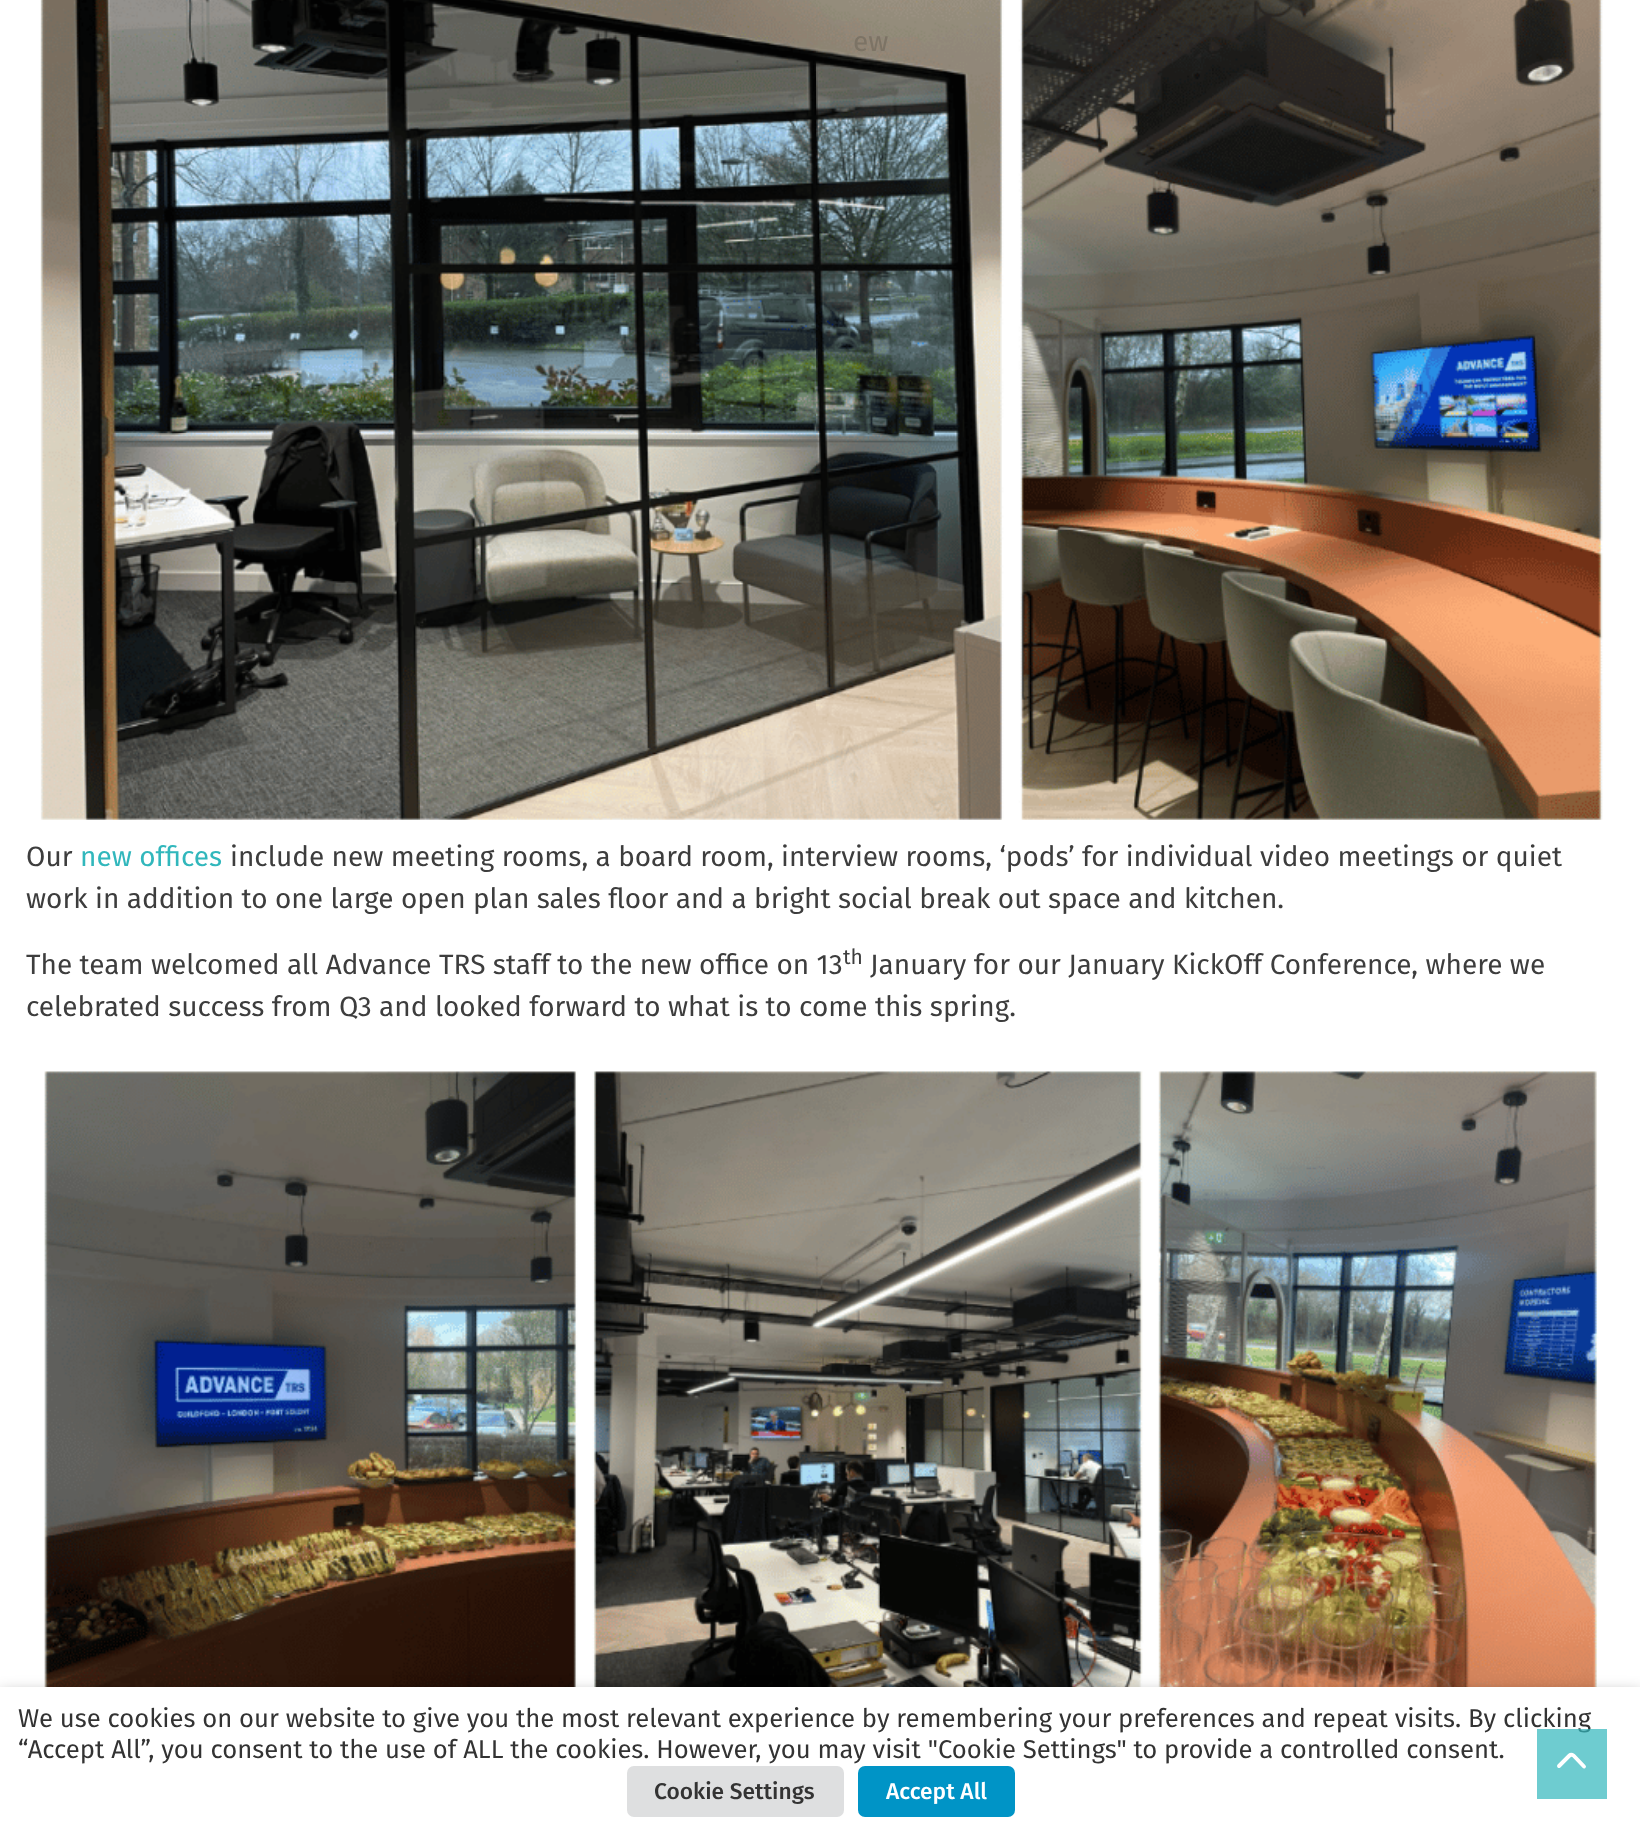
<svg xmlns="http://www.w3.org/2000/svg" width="1640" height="1833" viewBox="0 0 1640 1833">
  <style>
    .t1 { font: 28px Fira Sans; fill: #7c7365; }
    .t2 { font: 28px Fira Sans; fill: #3d3d3d; }
    .t3 { font: 28px Fira Sans; fill: #31b7bc; }
    .t4 { font: 21px Fira Sans; fill: #3d3d3d; }
    .t5 { font: 25.67px Fira Sans; fill: #333; }
    .t6 { font: 500 22.75px Fira Sans; fill: #333; }
    .t7 { font: 500 22.75px Fira Sans; fill: #fff; }
  </style>
  <rect width="100%" height="100%" fill="#fff"/>
  <image x="40" y="0" width="1563" height="820" href="images/1.png"/>
  <text x="853" y="51" class="t1">ew</text>
  <text x="26" y="866" class="t2">Our</text>
  <text x="80" y="866" class="t3">new offices</text>
  <text x="230" y="866" class="t2">include new meeting rooms, a board room, interview rooms, ‘pods’ for individual video meetings or quiet</text>
  <text x="26" y="908" class="t2">work in addition to one large open plan sales floor and a bright social break out space and kitchen.</text>
  <text x="26" y="974" class="t2">The team welcomed all Advance TRS staff to the new office on 13</text>
  <text x="843" y="964" class="t4">th</text>
  <text x="870" y="974" class="t2">January for our January KickOff Conference, where we</text>
  <text x="26" y="1016" class="t2">celebrated success from Q3 and looked forward to what is to come this spring.</text>
  <image x="44" y="1071" width="1555" height="616" href="images/2.png"/>
  <rect x="0" y="1696" width="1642" height="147" fill="#00000080" filter="blur(9px)"/>
  <rect x="0" y="1687" width="1640" height="146" fill="#fff"/>
  <text x="18" y="1727" class="t5">We use cookies on our website to give you the most relevant experience by remembering your preferences and repeat visits. By clicking</text>
  <text x="18" y="1758" class="t5">“Accept All”, you consent to the use of ALL the cookies. However, you may visit "Cookie Settings" to provide a controlled consent.</text>
  <rect x="627" y="1766" width="217" height="51" rx="7" fill="#dedfe0"/>
  <text x="654" y="1799" class="t6">Cookie Settings</text>
  <rect x="858" y="1766" width="157" height="51" rx="7" fill="#0094c6"/>
  <text x="886" y="1799" class="t7">Accept All</text>
  <rect x="1537" y="1729" width="70" height="70" fill="#31b7bcb3"/>
  <path d="M1584 1766.5L1573.5 1755.5C1572 1754.5 1570.5 1754.5 1569.5 1755.5L1559 1766" fill="none" stroke="#fff" stroke-width="3.9" stroke-linecap="round" stroke-linejoin="bevel"/>
</svg>
